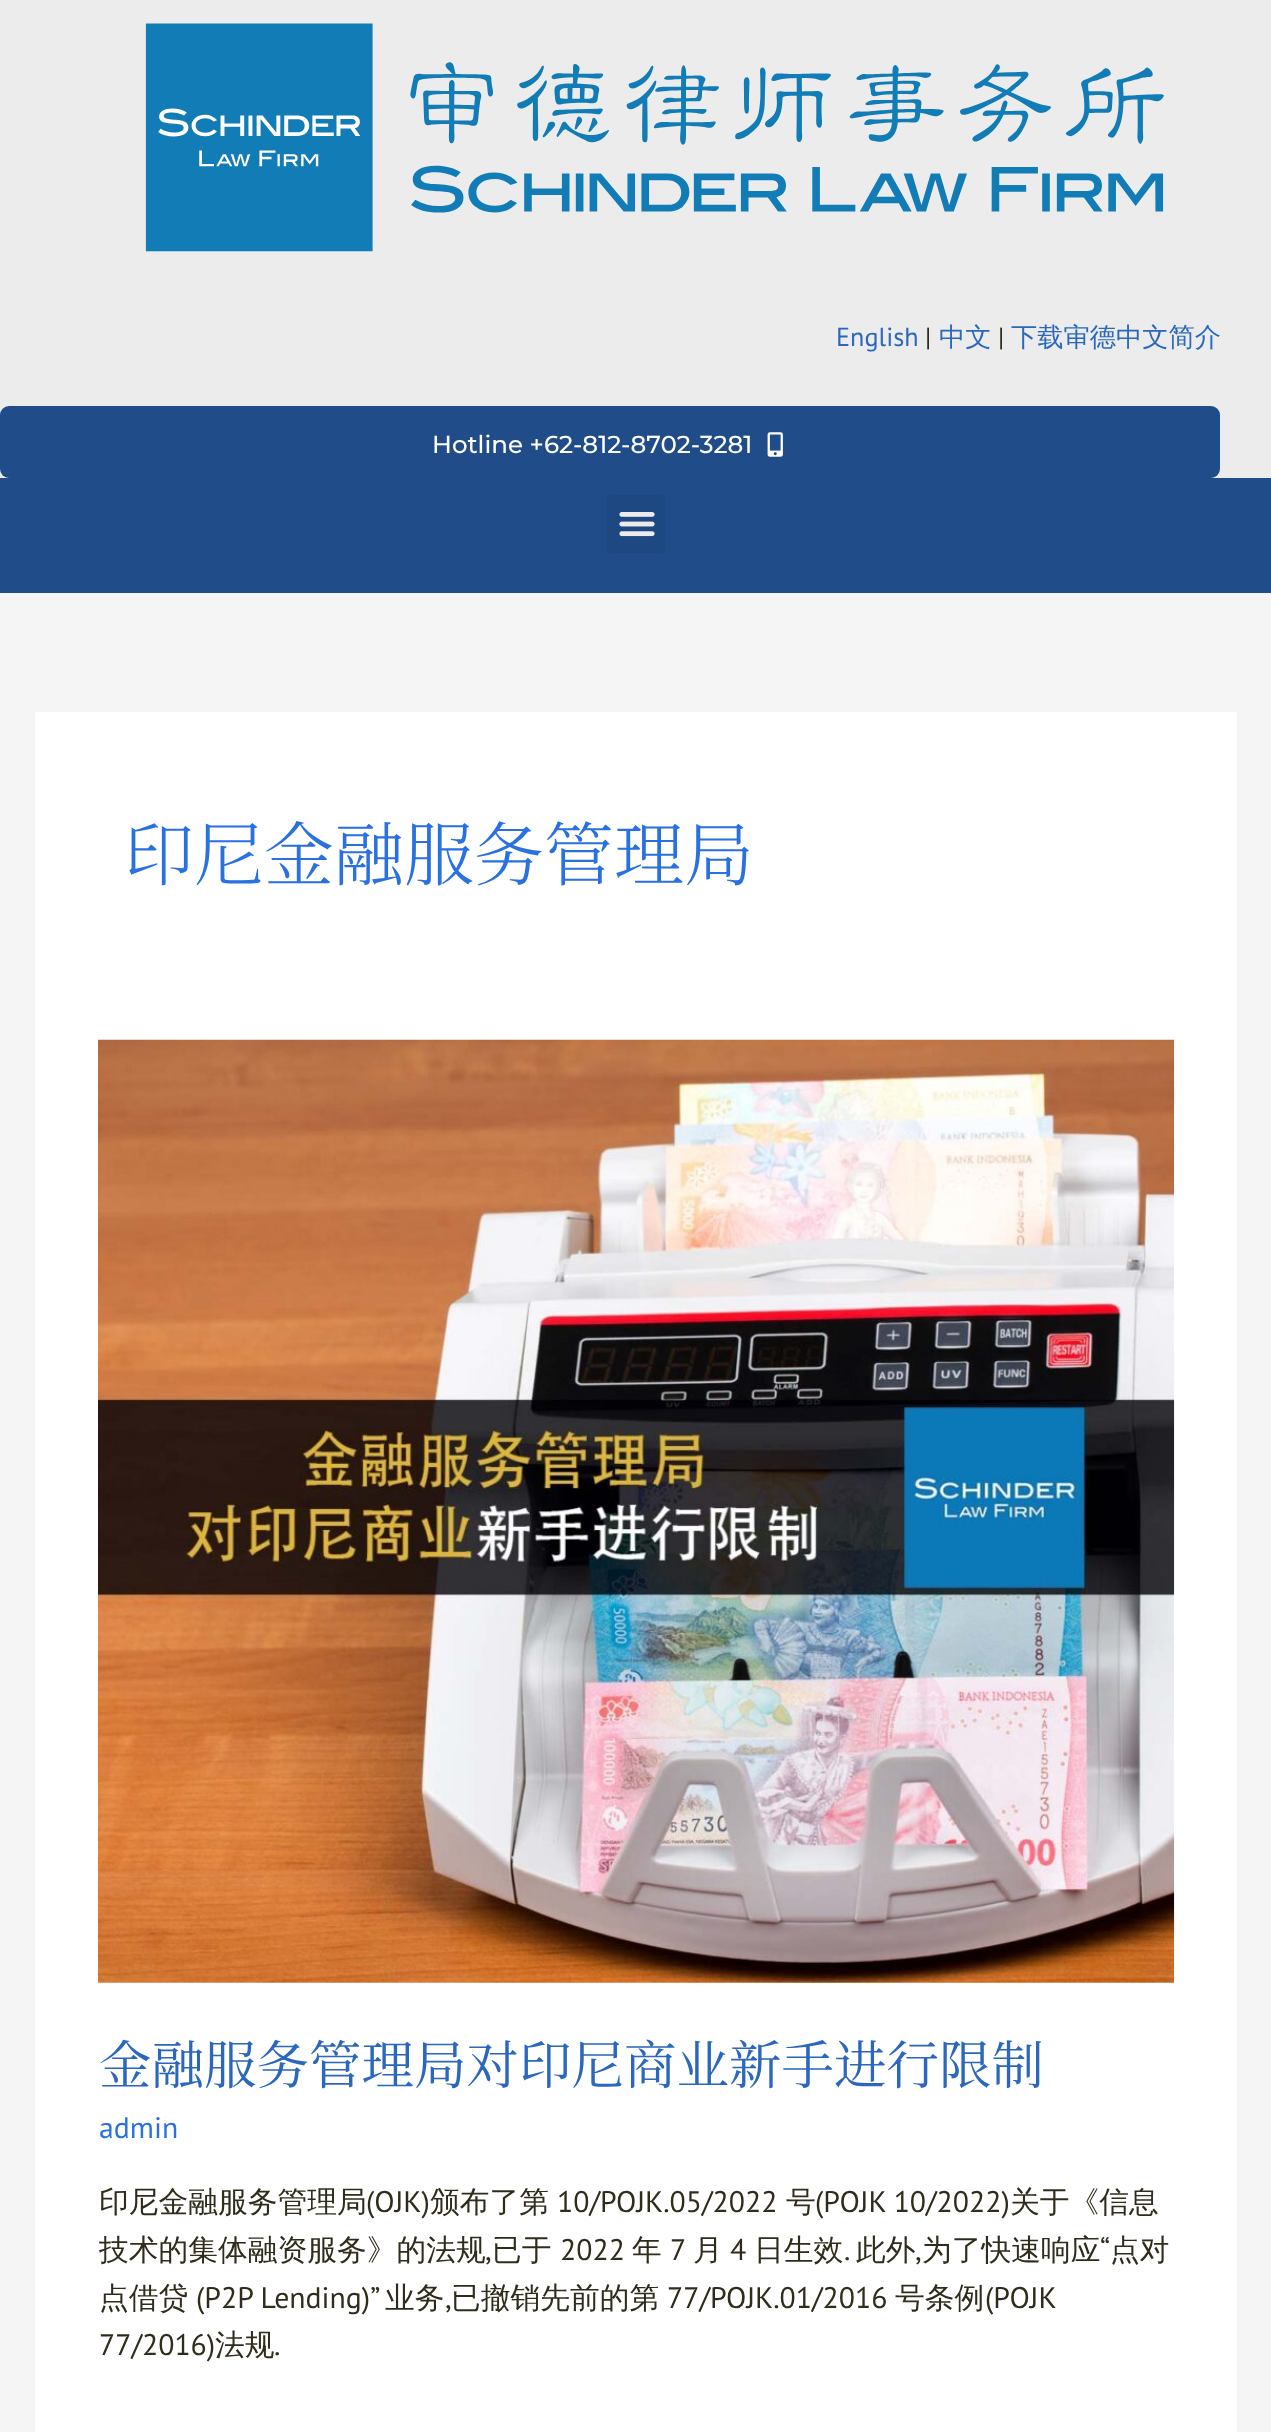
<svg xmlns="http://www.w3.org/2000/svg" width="1271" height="2432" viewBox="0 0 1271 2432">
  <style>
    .t1 { font: 26.25px PT Sans; fill: #2b68bd; }
    .t2 { font: 26.25px PT Sans; fill: #302c1c; }
    .t3 { font: 500 26.25px WenQuanYi Zen Hei; fill: #2b68bd; }
    .t4 { font: 500 24.5px Montserrat; fill: #fff; }
    .t5 { font: 300 70px Noto Serif SC; fill: #2970e1; }
    .t6 { font: 52.5px Noto Serif SC; fill: #2b68bd; }
    .t7 { font: 29.75px PT Sans; fill: #2970e1; }
    .t8 { font: 500 29.75px WenQuanYi Zen Hei; fill: #302c1c; }
    .t9 { font: 29.75px PT Sans; fill: #302c1c; }
  </style>
  <rect width="100%" height="100%" fill="#f5f5f5"/>
  <rect x="0" y="0" width="1271" height="478" fill="#ececec"/>
  <image x="145" y="23" width="1019" height="229" href="images/1.png"/>
  <text x="836" y="346" class="t1">English</text>
  <text x="925" y="346" class="t2">|</text>
  <text x="939" y="346" class="t3">中文</text>
  <text x="998" y="346" class="t2">|</text>
  <text x="1011" y="346" class="t3">下载审德中文简介</text>
  <rect x="0" y="406" width="1220" height="72" rx="9" fill="#204c89"/>
  <text x="432" y="453" class="t4">Hotline +62-812-8702-3281</text>
  <image x="767" y="432" width="16" height="25" href="images/2.png"/>
  <rect x="0" y="478" width="1271" height="115" fill="#204c89"/>
  <rect x="607" y="495" width="58" height="58" rx="5" fill="#1e4882"/>
  <image x="619" y="512" width="36" height="25" href="images/3.png"/>
  <rect x="35" y="712" width="1202" height="1720" fill="#fff"/>
  <text x="124" y="880" class="t5">印尼金融服务管理局</text>
  <image x="98" y="1039" width="1077" height="944" href="images/4.png"/>
  <text x="99" y="2084" class="t6">金融服务管理局对印尼商业新手进行限制</text>
  <text x="99" y="2138" class="t7">admin</text>
  <text x="99" y="2212" class="t8">印尼金融服务管理局</text>
  <text x="366" y="2212" class="t9">(OJK)</text>
  <text x="430" y="2212" class="t8">颁布了第</text>
  <text x="557" y="2212" class="t9">10/POJK.05/2022</text>
  <text x="786" y="2212" class="t8">号</text>
  <text x="815" y="2212" class="t9">(POJK 10/2022)</text>
  <text x="1010" y="2212" class="t8">关于《信息</text>
  <text x="99" y="2260" class="t8">技术的集体融资服务》的法规</text>
  <text x="485" y="2260" class="t9">,</text>
  <text x="492" y="2260" class="t8">已于</text>
  <text x="560" y="2260" class="t9">2022</text>
  <text x="632" y="2260" class="t8">年</text>
  <text x="670" y="2260" class="t9">7</text>
  <text x="693" y="2260" class="t8">月</text>
  <text x="730" y="2260" class="t9">4</text>
  <text x="754" y="2260" class="t8">日生效</text>
  <text x="844" y="2260" class="t9">.</text>
  <text x="856" y="2260" class="t8">此外</text>
  <text x="915" y="2260" class="t9">,</text>
  <text x="922" y="2260" class="t8">为了快速响应</text>
  <text x="1100" y="2260" class="t9">“</text>
  <text x="1110" y="2260" class="t8">点对</text>
  <text x="99" y="2308" class="t8">点借贷</text>
  <text x="196" y="2308" class="t9">(P2P Lending)”</text>
  <text x="385" y="2308" class="t8">业务</text>
  <text x="445" y="2308" class="t9">,</text>
  <text x="451" y="2308" class="t8">已撤销先前的第</text>
  <text x="667" y="2308" class="t9">77/POJK.01/2016</text>
  <text x="895" y="2308" class="t8">号条例</text>
  <text x="985" y="2308" class="t9">(POJK</text>
  <text x="99" y="2355" class="t9">77/2016)</text>
  <text x="215" y="2355" class="t8">法规</text>
  <text x="274" y="2355" class="t9">.</text>
</svg>
